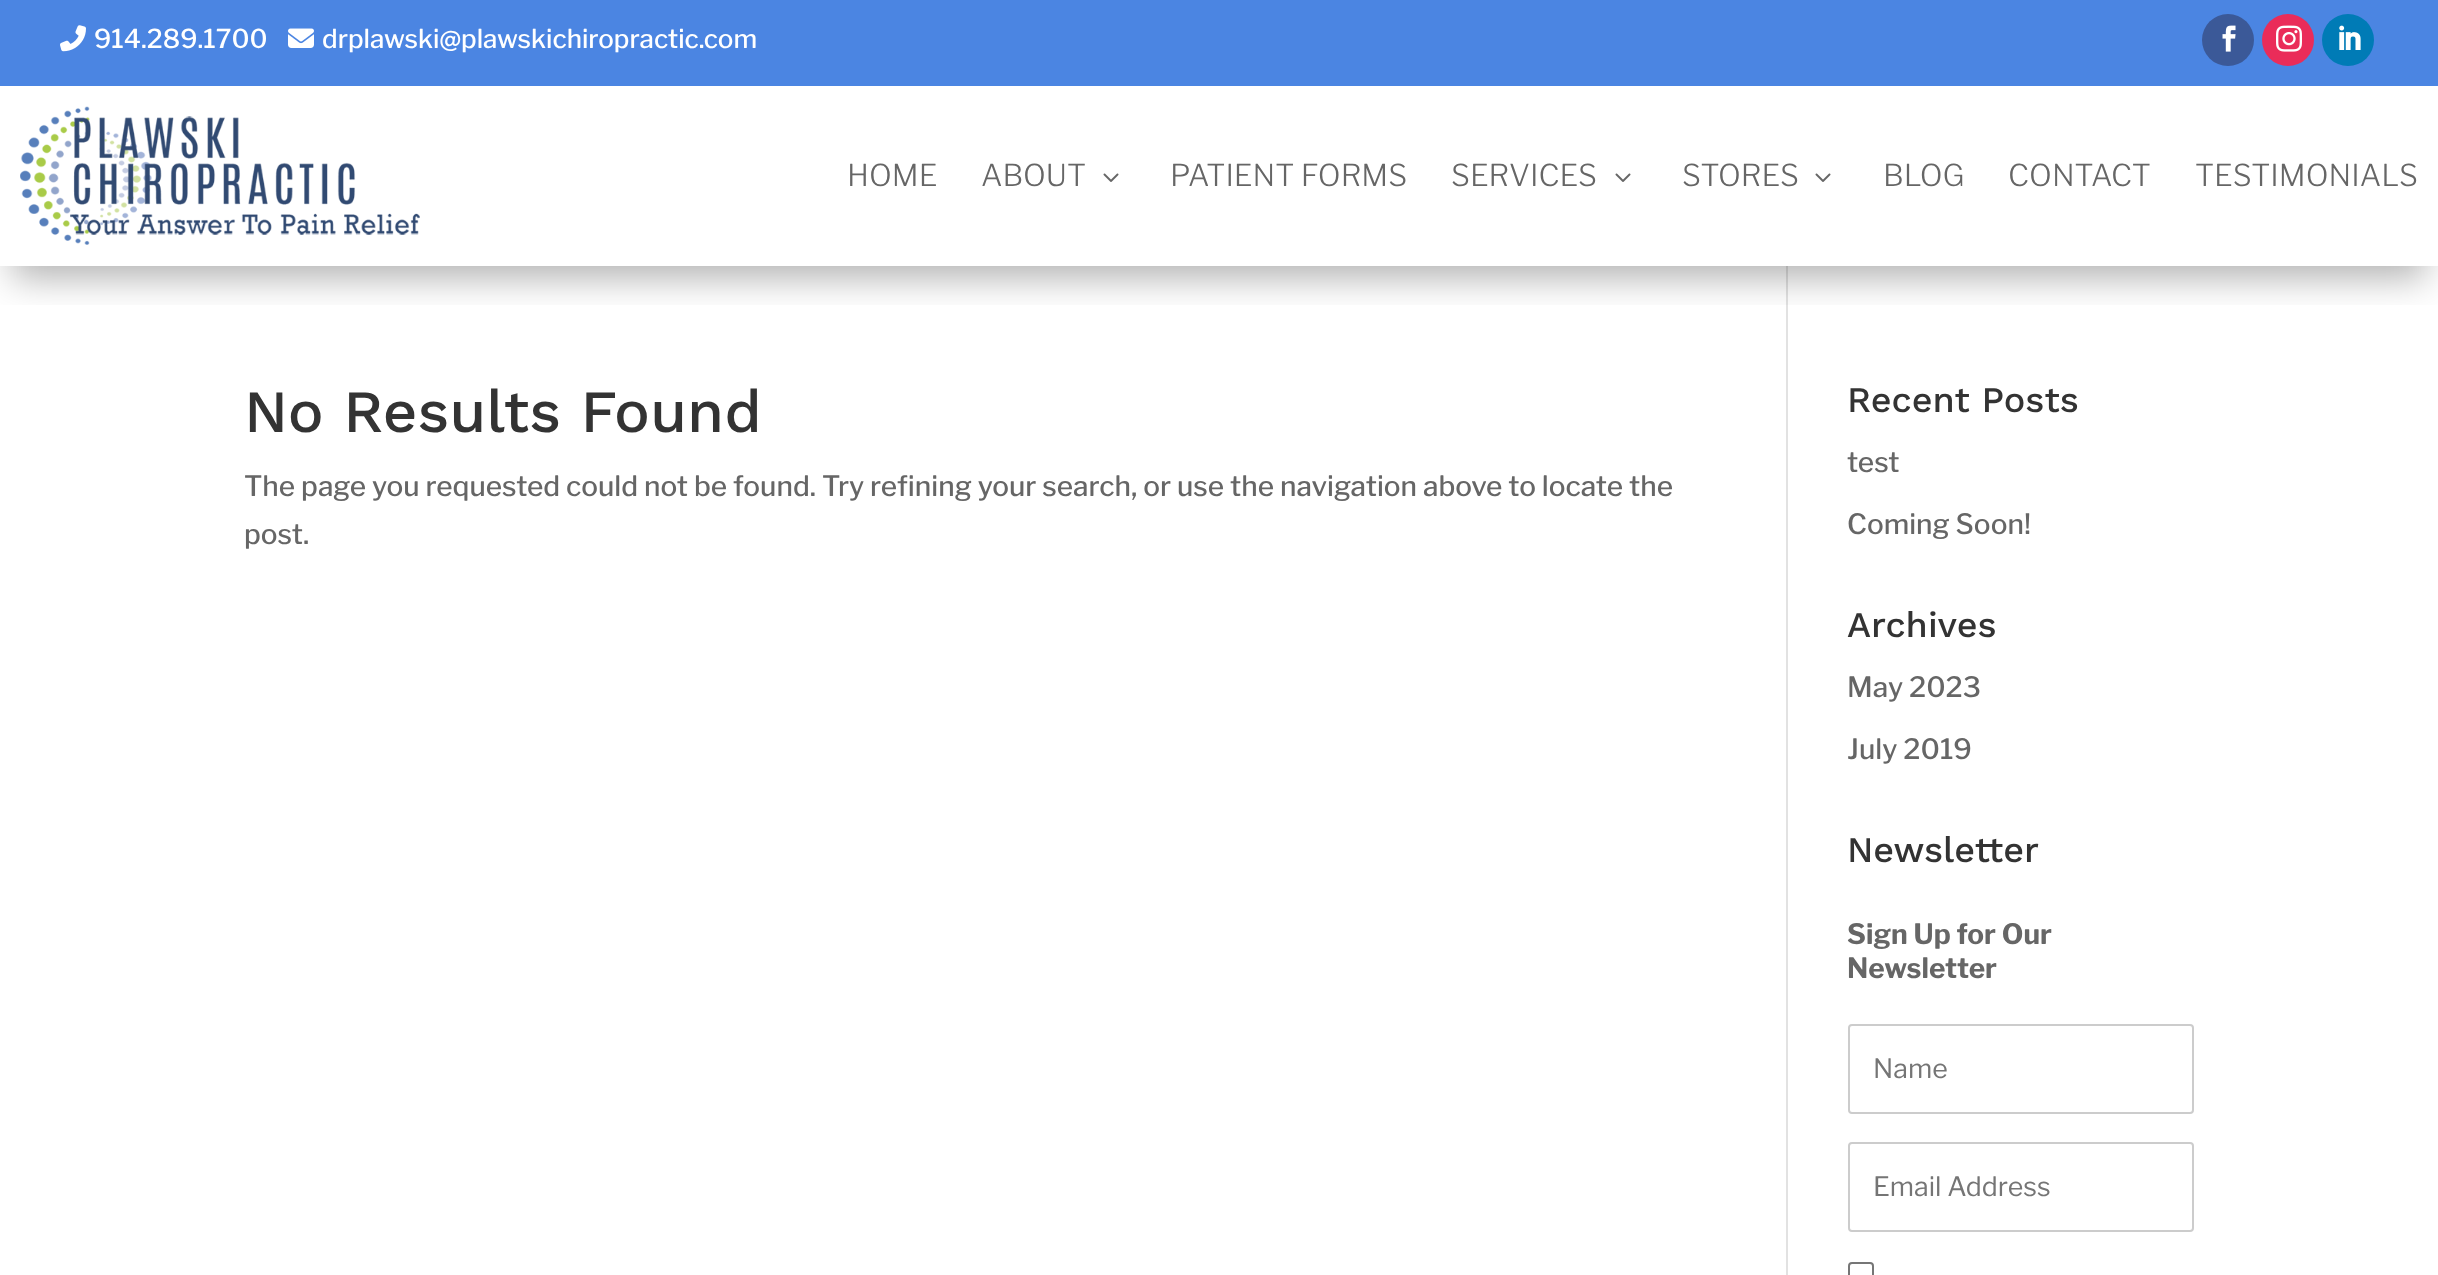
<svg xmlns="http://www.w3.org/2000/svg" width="2438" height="1275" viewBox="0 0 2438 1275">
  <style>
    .t1 { font: 100 26px Libre Franklin; fill: #fff; }
    .t2 { font: 100 30px 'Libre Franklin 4'; fill: #666; }
    .t3 { font: 500 60px Work Sans; fill: #333; }
    .t4 { font: 100 28px Libre Franklin; fill: #666; }
    .t5 { font: 500 36px Work Sans; fill: #333; }
    .t6 { font: 100 28px 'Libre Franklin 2'; fill: #666; }
    .t7 { font: 100 26.75px 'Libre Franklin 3'; fill: #757575; }
  </style>
  <defs>
    <clipPath id="clip1"><rect x="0" y="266" width="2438" height="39"/></clipPath>
  </defs>
  <rect width="100%" height="100%" fill="#fff"/>
  <rect x="0" y="0" width="2438" height="86" fill="#4b85e2"/>
  <image x="60" y="25" width="26" height="27" href="images/1.png"/>
  <text x="94" y="48" class="t1">914.289.1700</text>
  <image x="288" y="28" width="26" height="20" href="images/2.png"/>
  <text x="322" y="48" class="t1">drplawski@plawskichiropractic.com</text>
  <circle cx="2228" cy="40" r="26" fill="#3b5998"/>
  <image x="2222" y="25" width="14" height="27" href="images/3.png"/>
  <circle cx="2288" cy="40" r="26" fill="#ea2c59"/>
  <image x="2276" y="25" width="26" height="27" href="images/4.png"/>
  <circle cx="2348" cy="40" r="26" fill="#007bb6"/>
  <image x="2339" y="25" width="22" height="25" href="images/5.png"/>
  <rect x="1786" y="266" width="2" height="1009" fill="#e2e2e2"/>
  <g clip-path="url(#clip1)">
    <rect x="12" y="122" width="2414" height="156" fill="#0000004d" filter="blur(18px)"/>
  </g>
  <image x="20" y="106" width="400" height="139" href="images/6.png"/>
  <text x="847" y="186" class="t2">HOME</text>
  <text x="981" y="186" class="t2">ABOUT</text>
  <image x="1103" y="173" width="16" height="9" href="images/7.png"/>
  <text x="1170" y="186" class="t2">PATIENT FORMS</text>
  <text x="1451" y="186" class="t2">SERVICES</text>
  <image x="1615" y="173" width="16" height="9" href="images/7.png"/>
  <text x="1682" y="186" class="t2">STORES</text>
  <image x="1815" y="173" width="16" height="9" href="images/7.png"/>
  <text x="1883" y="186" class="t2">BLOG</text>
  <text x="2008" y="186" class="t2">CONTACT</text>
  <text x="2195" y="186" class="t2">TESTIMONIALS</text>
  <text x="244" y="432" class="t3">No Results Found</text>
  <text x="244" y="496" class="t4">The page you requested could not be found. Try refining your search, or use the navigation above to locate the</text>
  <text x="244" y="544" class="t4">post.</text>
  <text x="1847" y="412" class="t5">Recent Posts</text>
  <text x="1847" y="472" class="t4">test</text>
  <text x="1847" y="534" class="t4">Coming Soon!</text>
  <text x="1847" y="637" class="t5">Archives</text>
  <text x="1847" y="697" class="t4">May 2023</text>
  <text x="1847" y="759" class="t4">July 2019</text>
  <text x="1847" y="862" class="t5">Newsletter</text>
  <text x="1847" y="944" class="t6">Sign Up for Our</text>
  <text x="1847" y="978" class="t6">Newsletter</text>
  <rect x="1849" y="1025" width="344" height="88" rx="3" fill="none" stroke="#ccc" stroke-width="2"/>
  <text x="1873" y="1078" class="t7">Name</text>
  <rect x="1849" y="1143" width="344" height="88" rx="3" fill="none" stroke="#ccc" stroke-width="2"/>
  <text x="1873" y="1196" class="t7">Email Address</text>
  <rect x="1849" y="1263" width="24" height="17" rx="3" fill="none" stroke="#767676" stroke-width="2"/>
</svg>
